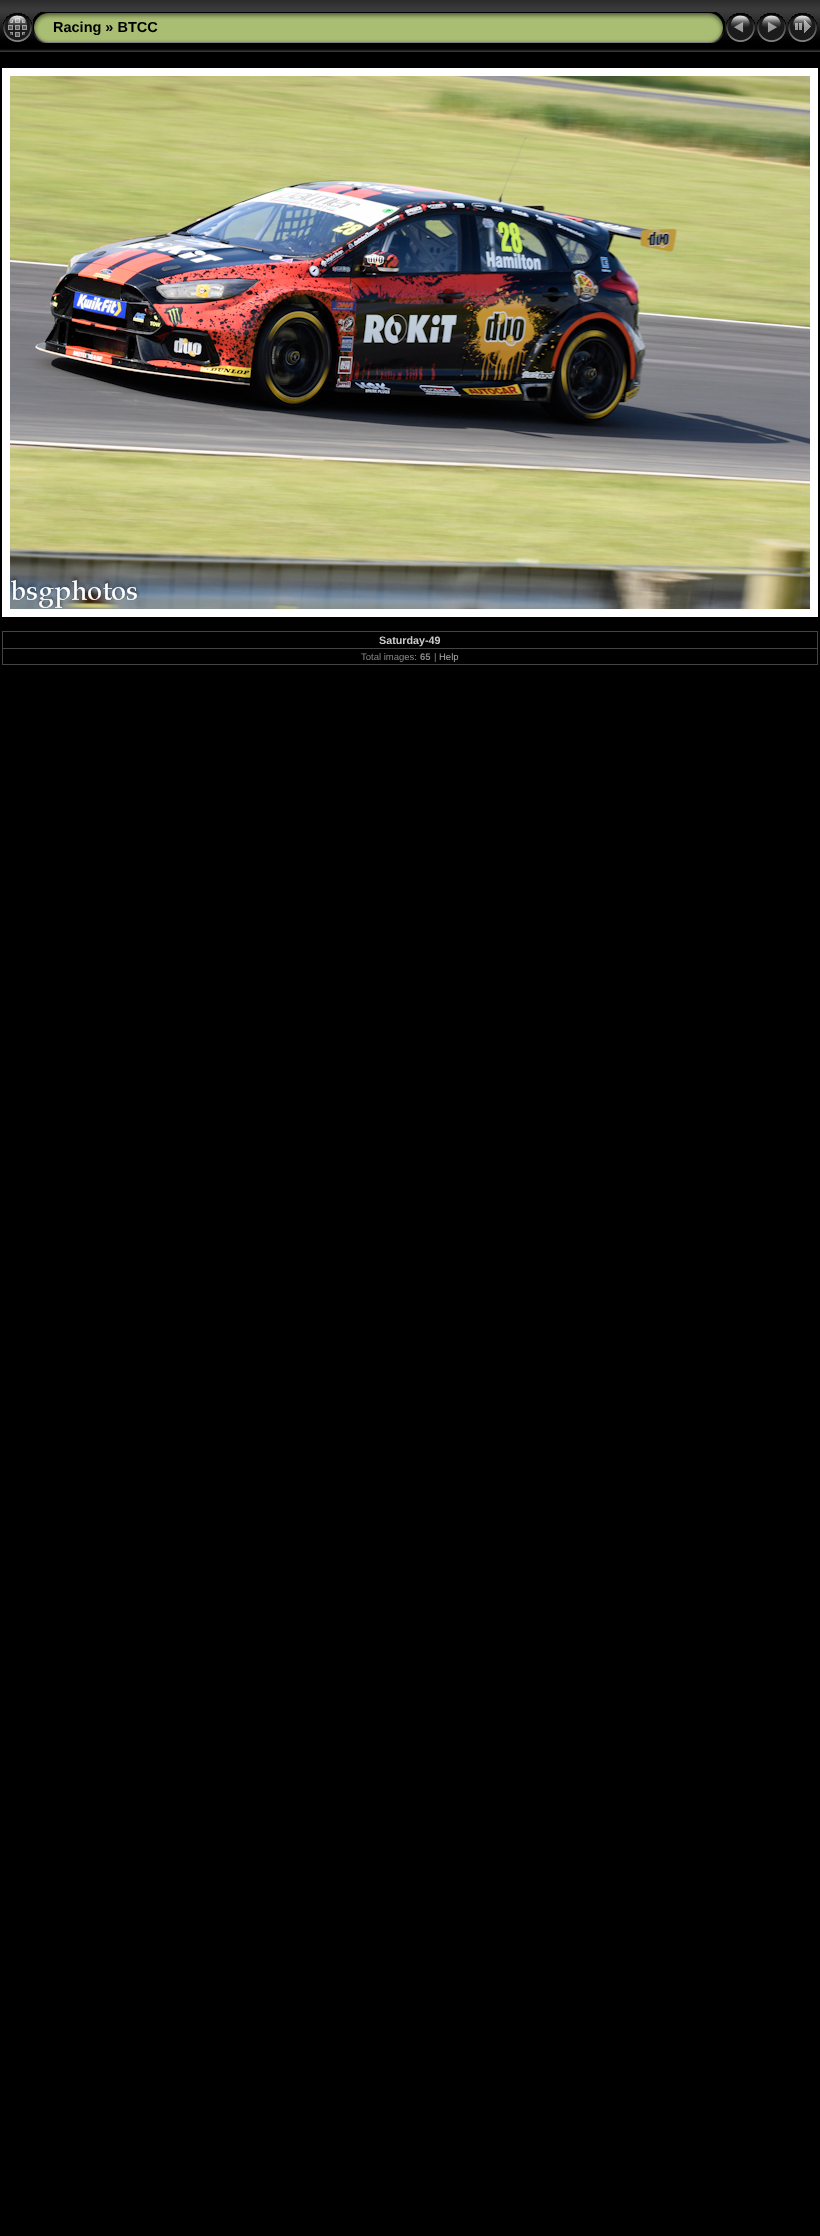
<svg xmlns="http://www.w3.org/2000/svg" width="820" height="2236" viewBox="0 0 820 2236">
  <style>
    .t1 { font: bold 14.5px Liberation Sans; fill: #000; }
    .t2 { font: bold 10.75px Liberation Sans; fill: #ccc; }
    .t3 { font: 9.5px Liberation Sans; fill: #888; }
    .t4 { font: bold 9.5px Liberation Sans; fill: #888; }
    .t5 { font: 9.5px Liberation Sans; fill: #aaa; }
  </style>
  <rect width="100%" height="100%" fill="#000"/>
  <image x="0" y="0" width="820" height="52" href="images/1.png"/>
  <image x="3" y="13" width="29" height="29" href="images/2.png"/>
  <image x="33" y="12" width="20" height="31" href="images/3.png"/>
  <image x="53" y="12" width="652" height="31" href="images/4.png"/>
  <text x="53" y="32" class="t1">Racing » BTCC</text>
  <image x="705" y="12" width="20" height="31" href="images/5.png"/>
  <image x="726" y="13" width="29" height="29" href="images/6.png"/>
  <image x="757" y="13" width="29" height="29" href="images/7.png"/>
  <image x="788" y="13" width="29" height="29" href="images/8.png"/>
  <rect x="6" y="72" width="808" height="541" fill="none" stroke="#fff" stroke-width="8"/>
  <image x="10" y="76" width="800" height="533" href="images/9.png"/>
  <rect x="2" y="631" width="816" height="1" fill="#444"/>
  <rect x="817" y="631" width="1" height="34" fill="#444"/>
  <rect x="2" y="664" width="816" height="1" fill="#444"/>
  <rect x="2" y="631" width="1" height="34" fill="#444"/>
  <text x="379" y="644" class="t2">Saturday-49</text>
  <rect x="2" y="648" width="816" height="1" fill="#444"/>
  <text x="361" y="660" class="t3">Total images:</text>
  <text x="420" y="660" class="t4">65</text>
  <text x="434" y="660" class="t3">|</text>
  <text x="439" y="660" class="t5">Help</text>
</svg>
